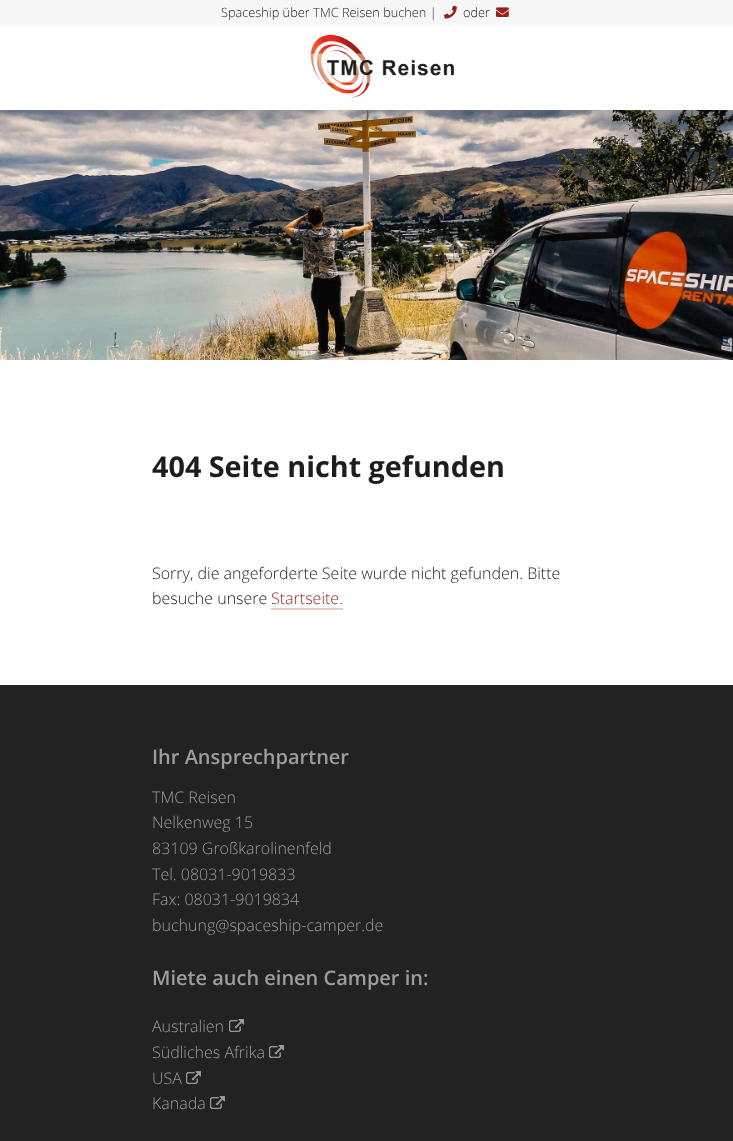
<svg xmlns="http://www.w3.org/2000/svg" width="733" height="1141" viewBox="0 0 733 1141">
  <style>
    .t1 { font: 300 12.75px Open Sans; fill: #1d1d1d; }
    .t2 { font: bold 28.75px Open Sans; fill: #1d1d1d; }
    .t3 { font: 300 16px Open Sans; fill: #1d1d1d; }
    .t4 { font: 300 16px Open Sans; fill: #9a1f18; }
    .t5 { font: 600 20px Open Sans; fill: #9e9d9d; }
    .t6 { font: 300 16px Open Sans; fill: #9e9d9d; }
  </style>
  <defs>
    <clipPath id="clip1"><rect x="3" y="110" width="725" height="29"/></clipPath>
  </defs>
  <rect width="100%" height="100%" fill="#fff"/>
  <image x="0" y="110" width="733" height="250" href="images/4.png"/>
  <g clip-path="url(#clip1)">
    <rect x="15" y="20" width="701" height="78" fill="#00000026" filter="blur(37px)"/>
  </g>
  <rect x="0" y="0" width="733" height="26" fill="#f7f7f7"/>
  <text x="221" y="17" class="t1">Spaceship über TMC Reisen buchen |</text>
  <image x="444" y="5" width="13" height="14" href="images/1.png"/>
  <text x="463" y="17" class="t1">oder</text>
  <image x="496" y="7" width="13" height="10" href="images/2.png"/>
  <image x="310" y="34" width="144" height="64" href="images/3.png"/>
  <text x="152" y="477" class="t2">404 Seite nicht gefunden</text>
  <text x="152" y="579" class="t3">Sorry, die angeforderte Seite wurde nicht gefunden. Bitte</text>
  <text x="152" y="604" class="t3">besuche unsere</text>
  <text x="271" y="604" class="t4">Startseite.</text>
  <rect x="271" y="608" width="72" height="2" fill="#e8cbc5"/>
  <rect x="0" y="685" width="733" height="456" fill="#222"/>
  <text x="152" y="764" class="t5">Ihr Ansprechpartner</text>
  <text x="152" y="803" class="t6">TMC Reisen</text>
  <text x="152" y="828" class="t6">Nelkenweg 15</text>
  <text x="152" y="854" class="t6">83109 Großkarolinenfeld</text>
  <text x="152" y="880" class="t6">Tel. 08031-9019833</text>
  <text x="152" y="905" class="t6">Fax: 08031-9019834</text>
  <text x="152" y="931" class="t6">buchung@spaceship-camper.de</text>
  <text x="152" y="985" class="t5">Miete auch einen Camper in:</text>
  <text x="152" y="1032" class="t6">Australien</text>
  <image x="229" y="1019" width="15" height="13" href="images/5.png"/>
  <text x="152" y="1058" class="t6">Südliches Afrika</text>
  <image x="269" y="1045" width="15" height="13" href="images/5.png"/>
  <text x="152" y="1084" class="t6">USA</text>
  <image x="186" y="1071" width="15" height="13" href="images/5.png"/>
  <text x="152" y="1109" class="t6">Kanada</text>
  <image x="210" y="1096" width="15" height="13" href="images/5.png"/>
</svg>
